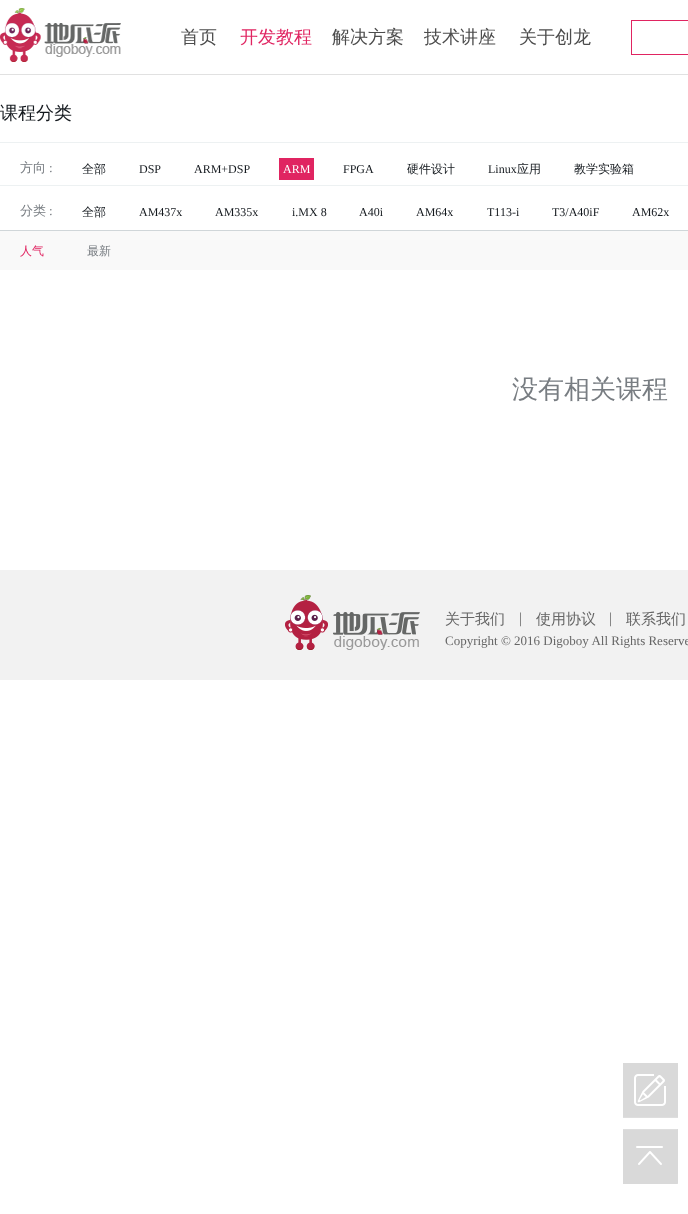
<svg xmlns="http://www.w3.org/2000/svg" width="688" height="1214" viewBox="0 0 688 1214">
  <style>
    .t1 { font: 500 18px WenQuanYi Zen Hei; fill: #4c4c4c; }
    .t2 { font: 500 18px WenQuanYi Zen Hei; fill: #e02461; }
    .t3 { font: 500 18px WenQuanYi Zen Hei; fill: #14191e; }
    .t4 { font: 500 13px WenQuanYi Zen Hei; fill: #787d82; }
    .t5 { font: 13px Liberation Serif; fill: #787d82; }
    .t6 { font: 500 12px WenQuanYi Zen Hei; fill: #14191e; }
    .t7 { font: 12px Liberation Serif; fill: #14191e; }
    .t8 { font: 12px Liberation Serif; fill: #fff; }
    .t9 { font: 500 12px WenQuanYi Zen Hei; fill: #e02461; }
    .t10 { font: 500 12px WenQuanYi Zen Hei; fill: #787d82; }
    .t11 { font: 500 26px WenQuanYi Zen Hei; fill: #787d82; }
    .t12 { font: 500 15px WenQuanYi Zen Hei; fill: #666; }
    .t13 { font: 15px Liberation Serif; fill: #666; }
    .t14 { font: 13px Liberation Serif; fill: #666; }
  </style>
  <rect width="100%" height="100%" fill="#fff"/>
  <rect x="0" y="74" width="688" height="1" fill="#e1e1e1"/>
  <image x="0" y="8" width="121" height="54" href="images/1.png"/>
  <text x="181" y="43" class="t1">首页</text>
  <text x="240" y="43" class="t2">开发教程</text>
  <text x="332" y="43" class="t1">解决方案</text>
  <text x="424" y="43" class="t1">技术讲座</text>
  <text x="519" y="43" class="t1">关于创龙</text>
  <rect x="631" y="20" width="57" height="1" fill="#e02461"/>
  <rect x="631" y="54" width="57" height="1" fill="#e02461"/>
  <rect x="631" y="20" width="1" height="35" fill="#e02461"/>
  <rect x="0" y="142" width="688" height="1" fill="#edf1f2"/>
  <text x="0" y="119" class="t3">课程分类</text>
  <rect x="0" y="185" width="688" height="1" fill="#edf1f2"/>
  <text x="20" y="172" class="t4">方向</text>
  <text x="49" y="172" class="t5">:</text>
  <text x="82" y="173" class="t6">全部</text>
  <text x="139" y="173" class="t7">DSP</text>
  <text x="194" y="173" class="t7">ARM+DSP</text>
  <rect x="279" y="158" width="35" height="22" fill="#e02461"/>
  <text x="283" y="173" class="t8">ARM</text>
  <text x="343" y="173" class="t7">FPGA</text>
  <text x="407" y="173" class="t6">硬件设计</text>
  <text x="488" y="173" class="t7">Linux</text>
  <text x="517" y="173" class="t6">应用</text>
  <text x="574" y="173" class="t6">教学实验箱</text>
  <text x="20" y="215" class="t4">分类</text>
  <text x="49" y="215" class="t5">:</text>
  <text x="82" y="216" class="t6">全部</text>
  <text x="139" y="216" class="t7">AM437x</text>
  <text x="215" y="216" class="t7">AM335x</text>
  <text x="292" y="216" class="t7">i.MX 8</text>
  <text x="359" y="216" class="t7">A40i</text>
  <text x="416" y="216" class="t7">AM64x</text>
  <text x="487" y="216" class="t7">T113-i</text>
  <text x="552" y="216" class="t7">T3/A40iF</text>
  <text x="632" y="216" class="t7">AM62x</text>
  <rect x="0" y="231" width="688" height="39" fill="#f9f9f9"/>
  <rect x="0" y="230" width="688" height="1" fill="#d0d6d9"/>
  <text x="20" y="255" class="t9">人气</text>
  <text x="87" y="255" class="t10">最新</text>
  <text x="512" y="398" class="t11">没有相关课程</text>
  <rect x="0" y="570" width="688" height="110" fill="#f2f2f2"/>
  <image x="285" y="595" width="135" height="55" href="images/2.png"/>
  <text x="445" y="624" class="t12">关于我们</text>
  <text x="519" y="623" class="t13">|</text>
  <text x="536" y="624" class="t12">使用协议</text>
  <text x="609" y="623" class="t13">|</text>
  <text x="626" y="624" class="t12">联系我们</text>
  <text x="445" y="645" class="t14">Copyright © 2016 Digoboy All Rights Reserve</text>
  <image x="623" y="1063" width="55" height="55" href="images/3.png"/>
  <image x="623" y="1129" width="55" height="55" href="images/4.png"/>
</svg>
